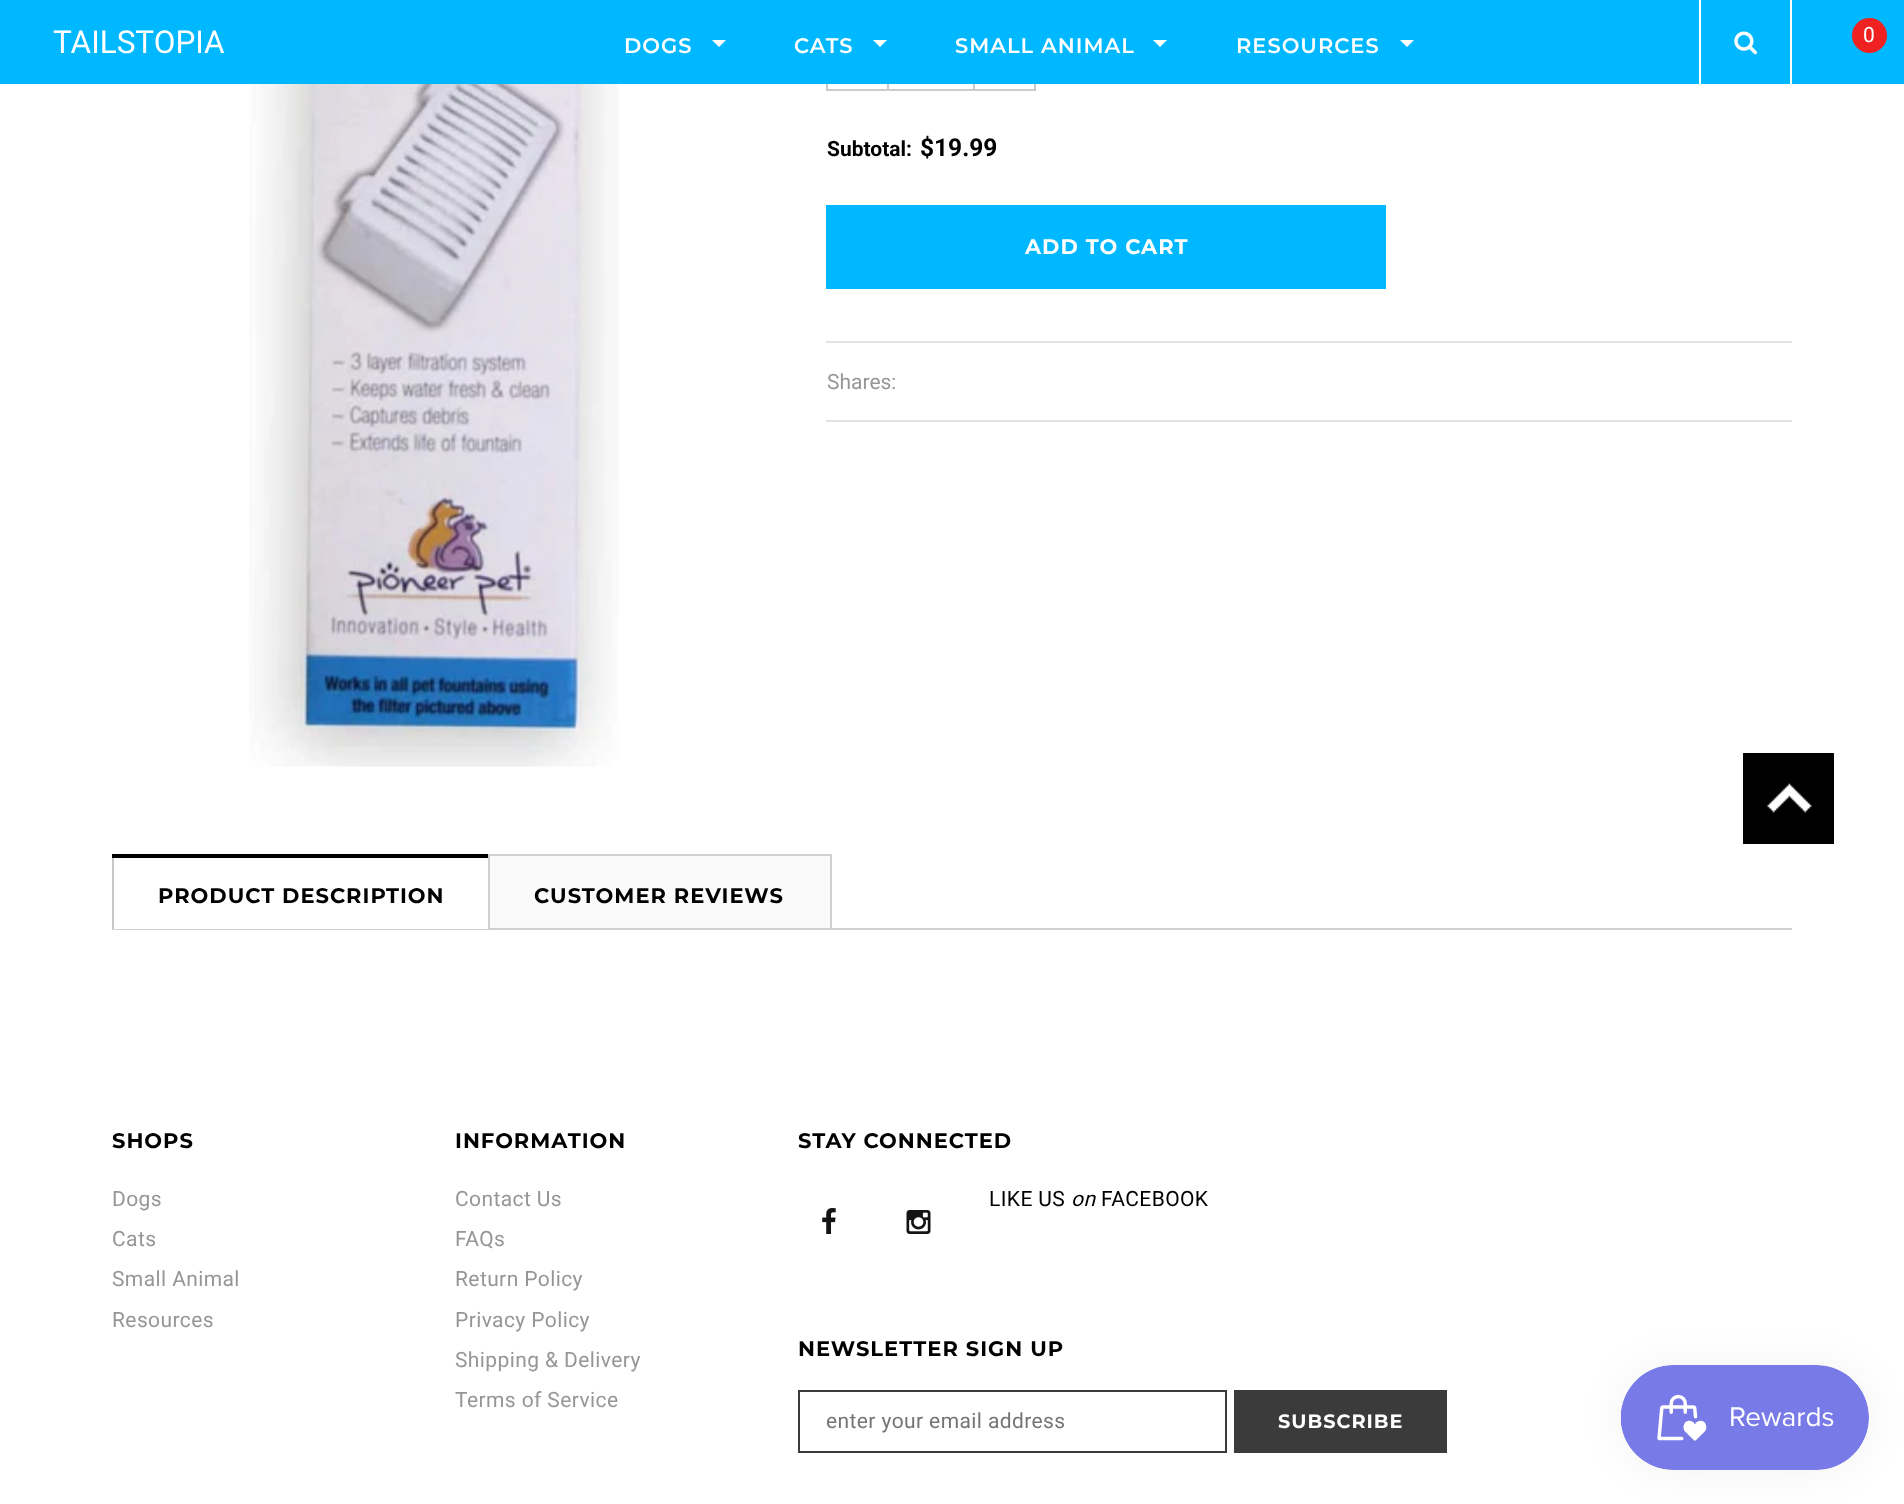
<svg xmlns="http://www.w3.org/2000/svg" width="1904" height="1504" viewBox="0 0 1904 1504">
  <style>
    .t1 { font: 31.5px Roboto; fill: #fff; }
    .t2 { font: 600 21px Montserrat; letter-spacing: 1px; fill: #fff; }
    .t3 { font: 21px Roboto; letter-spacing: 0.4px; fill: #fff; }
    .t4 { font: bold 21px Roboto; fill: #000; }
    .t5 { font: bold 24.5px Roboto; fill: #000; }
    .t6 { font: bold 21px Montserrat; letter-spacing: 1px; fill: #fff; }
    .t7 { font: 21px Roboto; fill: #969696; }
    .t8 { font: bold 21px Montserrat; letter-spacing: 1px; fill: #000; }
    .t9 { font: 21px Roboto; letter-spacing: 0.4px; fill: #969696; }
    .t10 { font: 21px Roboto; letter-spacing: 0.4px; fill: #000; }
    .t11 { font: italic 21px Roboto; letter-spacing: 0.4px; fill: #000; }
    .t12 { font: 21px Roboto; letter-spacing: 0.4px; fill: #757575; }
    .t13 { font: bold 19.25px Montserrat; letter-spacing: 1px; fill: #fff; }
  </style>
  <rect width="100%" height="100%" fill="#fff"/>
  <rect x="888" y="29" width="86" height="61" fill="none" stroke="#cbcbcb" stroke-width="2"/>
  <rect x="0" y="0" width="1904" height="84" fill="#00b8ff"/>
  <text x="53" y="53" class="t1">TAILSTOPIA</text>
  <text x="624" y="53" class="t2">DOGS</text>
  <path d="M712 40H726L719 47Z" fill="#fff"/>
  <text x="794" y="53" class="t2">CATS</text>
  <path d="M873 40H887L880 47Z" fill="#fff"/>
  <text x="955" y="53" class="t2">SMALL ANIMAL</text>
  <path d="M1153 40H1167L1160 47Z" fill="#fff"/>
  <text x="1236" y="53" class="t2">RESOURCES</text>
  <path d="M1400 40H1414L1407 47Z" fill="#fff"/>
  <rect x="1699" y="0" width="2" height="84" fill="#fff"/>
  <image x="1734" y="31" width="23" height="24" href="images/1.png"/>
  <rect x="1790" y="0" width="2" height="84" fill="#fff"/>
  <circle cx="1869.5" cy="35.5" r="17.5" fill="#f02121"/>
  <text x="1863" y="42" class="t3">0</text>
  <image x="249" y="84" width="370" height="683" href="images/2.png"/>
  <rect x="826" y="89" width="61" height="2" fill="#cbcbcb"/>
  <rect x="826" y="84" width="2" height="7" fill="#cbcbcb"/>
  <rect x="1034" y="84" width="2" height="7" fill="#cbcbcb"/>
  <rect x="975" y="89" width="61" height="2" fill="#cbcbcb"/>
  <text x="827" y="156" class="t4">Subtotal:</text>
  <text x="920" y="156" class="t5">$19.99</text>
  <rect x="826" y="205" width="560" height="84" fill="#00b8ff"/>
  <text x="1025" y="254" class="t6">ADD TO CART</text>
  <rect x="826" y="341" width="966" height="2" fill="#e3e3e3"/>
  <rect x="826" y="420" width="966" height="2" fill="#e3e3e3"/>
  <text x="827" y="389" class="t7">Shares:</text>
  <rect x="112" y="928" width="1680" height="2" fill="#d0d0d0"/>
  <rect x="112" y="854" width="378" height="4" fill="#000"/>
  <rect x="114" y="928" width="374" height="1" fill="#fff"/>
  <rect x="488" y="928" width="2" height="1" fill="#c8c8c8"/>
  <rect x="112" y="858" width="2" height="71" fill="#c8c8c8"/>
  <text x="158" y="903" class="t8">PRODUCT DESCRIPTION</text>
  <rect x="490" y="856" width="340" height="72" fill="#fafafa"/>
  <rect x="488" y="854" width="343" height="2" fill="#d0d0d0"/>
  <rect x="830" y="854" width="2" height="74" fill="#d0d0d0"/>
  <rect x="488" y="854" width="2" height="74" fill="#d0d0d0"/>
  <text x="534" y="903" class="t8">CUSTOMER REVIEWS</text>
  <rect x="1743" y="753" width="91" height="91" fill="#000"/>
  <image x="1767" y="783" width="45" height="30" href="images/3.png"/>
  <text x="112" y="1148" class="t8">SHOPS</text>
  <text x="112" y="1206" class="t9">Dogs</text>
  <text x="112" y="1246" class="t9">Cats</text>
  <text x="112" y="1286" class="t9">Small Animal</text>
  <text x="112" y="1327" class="t9">Resources</text>
  <text x="455" y="1148" class="t8">INFORMATION</text>
  <text x="455" y="1206" class="t9">Contact Us</text>
  <text x="455" y="1246" class="t9">FAQs</text>
  <text x="455" y="1286" class="t9">Return Policy</text>
  <text x="455" y="1327" class="t9">Privacy Policy</text>
  <text x="455" y="1367" class="t9">Shipping &amp; Delivery</text>
  <text x="455" y="1407" class="t9">Terms of Service</text>
  <text x="798" y="1148" class="t8">STAY CONNECTED</text>
  <text x="989" y="1206" class="t10">LIKE US</text>
  <text x="1071" y="1206" class="t11">on</text>
  <text x="1101" y="1206" class="t10">FACEBOOK</text>
  <image x="822" y="1208" width="14" height="26" href="images/4.png"/>
  <image x="906" y="1210" width="25" height="24" href="images/5.png"/>
  <text x="798" y="1356" class="t8">NEWSLETTER SIGN UP</text>
  <rect x="799" y="1391" width="427" height="61" fill="none" stroke="#3b3b3b" stroke-width="2"/>
  <text x="826" y="1428" class="t12">enter your email address</text>
  <rect x="1234" y="1390" width="213" height="63" fill="#3b3b3b"/>
  <text x="1278" y="1428" class="t13">SUBSCRIBE</text>
  <rect x="1621" y="1365" width="248" height="105" rx="52.5" fill="#0000000d" filter="blur(22px)"/>
  <image x="1620" y="1365" width="249" height="105" href="images/6.png"/>
</svg>
